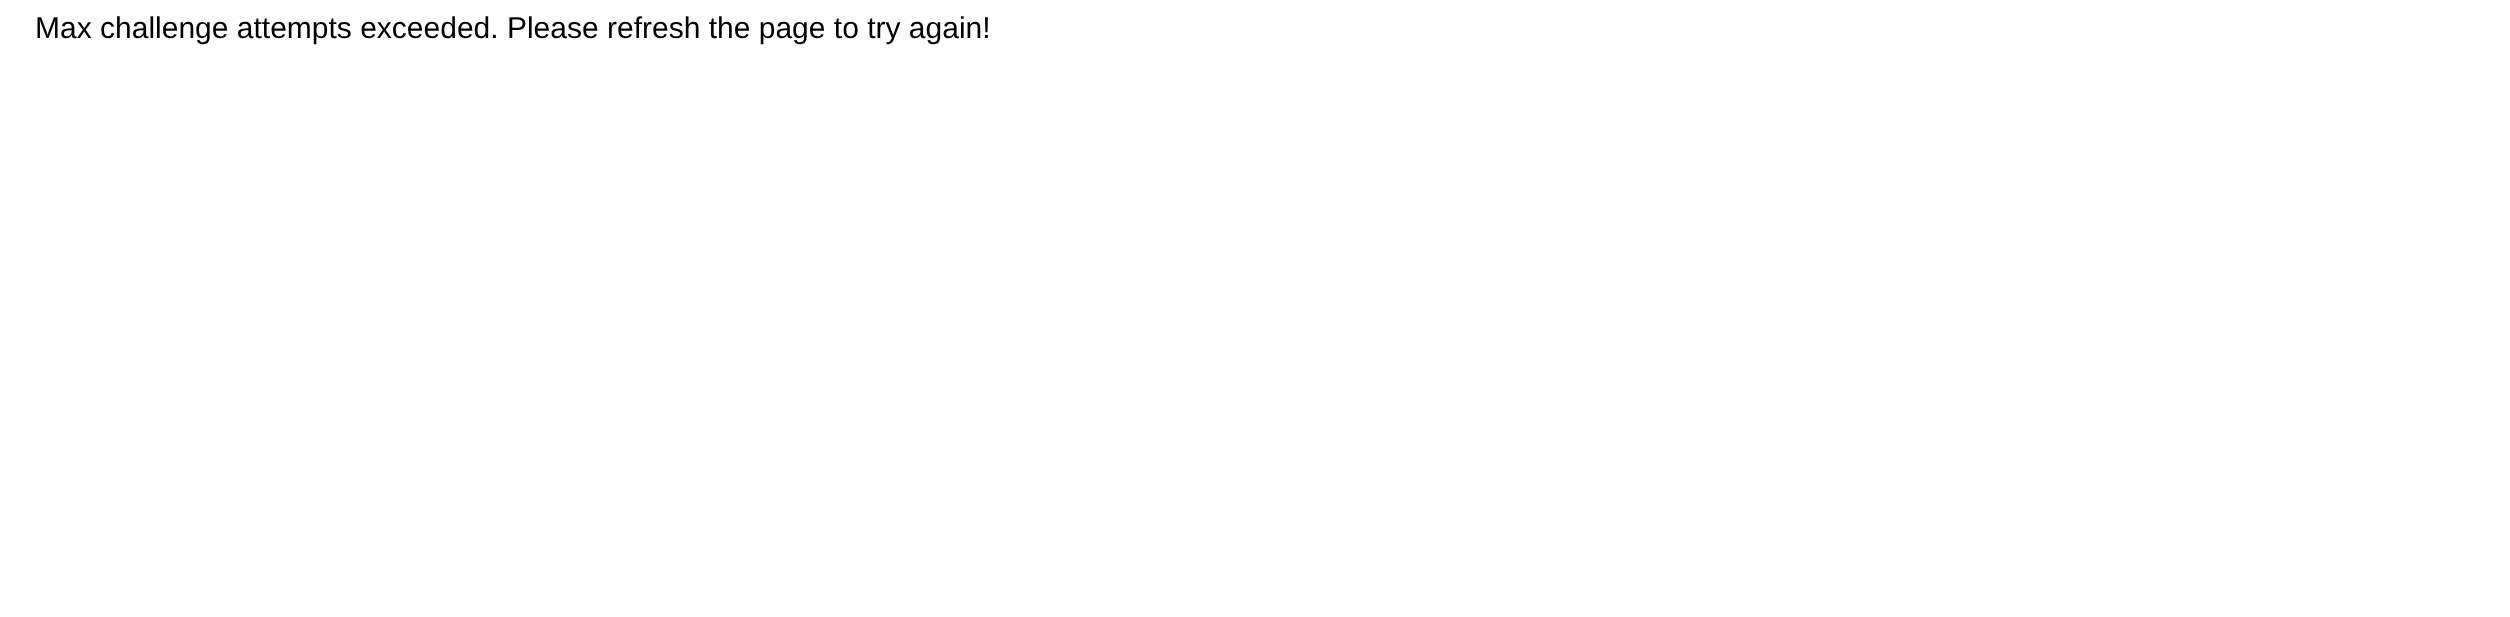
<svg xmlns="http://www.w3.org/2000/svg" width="2510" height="617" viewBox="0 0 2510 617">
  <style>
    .t1 { font: 30px Liberation Sans; fill: #000; }
  </style>
  <rect width="100%" height="100%" fill="#fff"/>
  <text x="35" y="38" class="t1">Max challenge attempts exceeded. Please refresh the page to try again!</text>
</svg>
